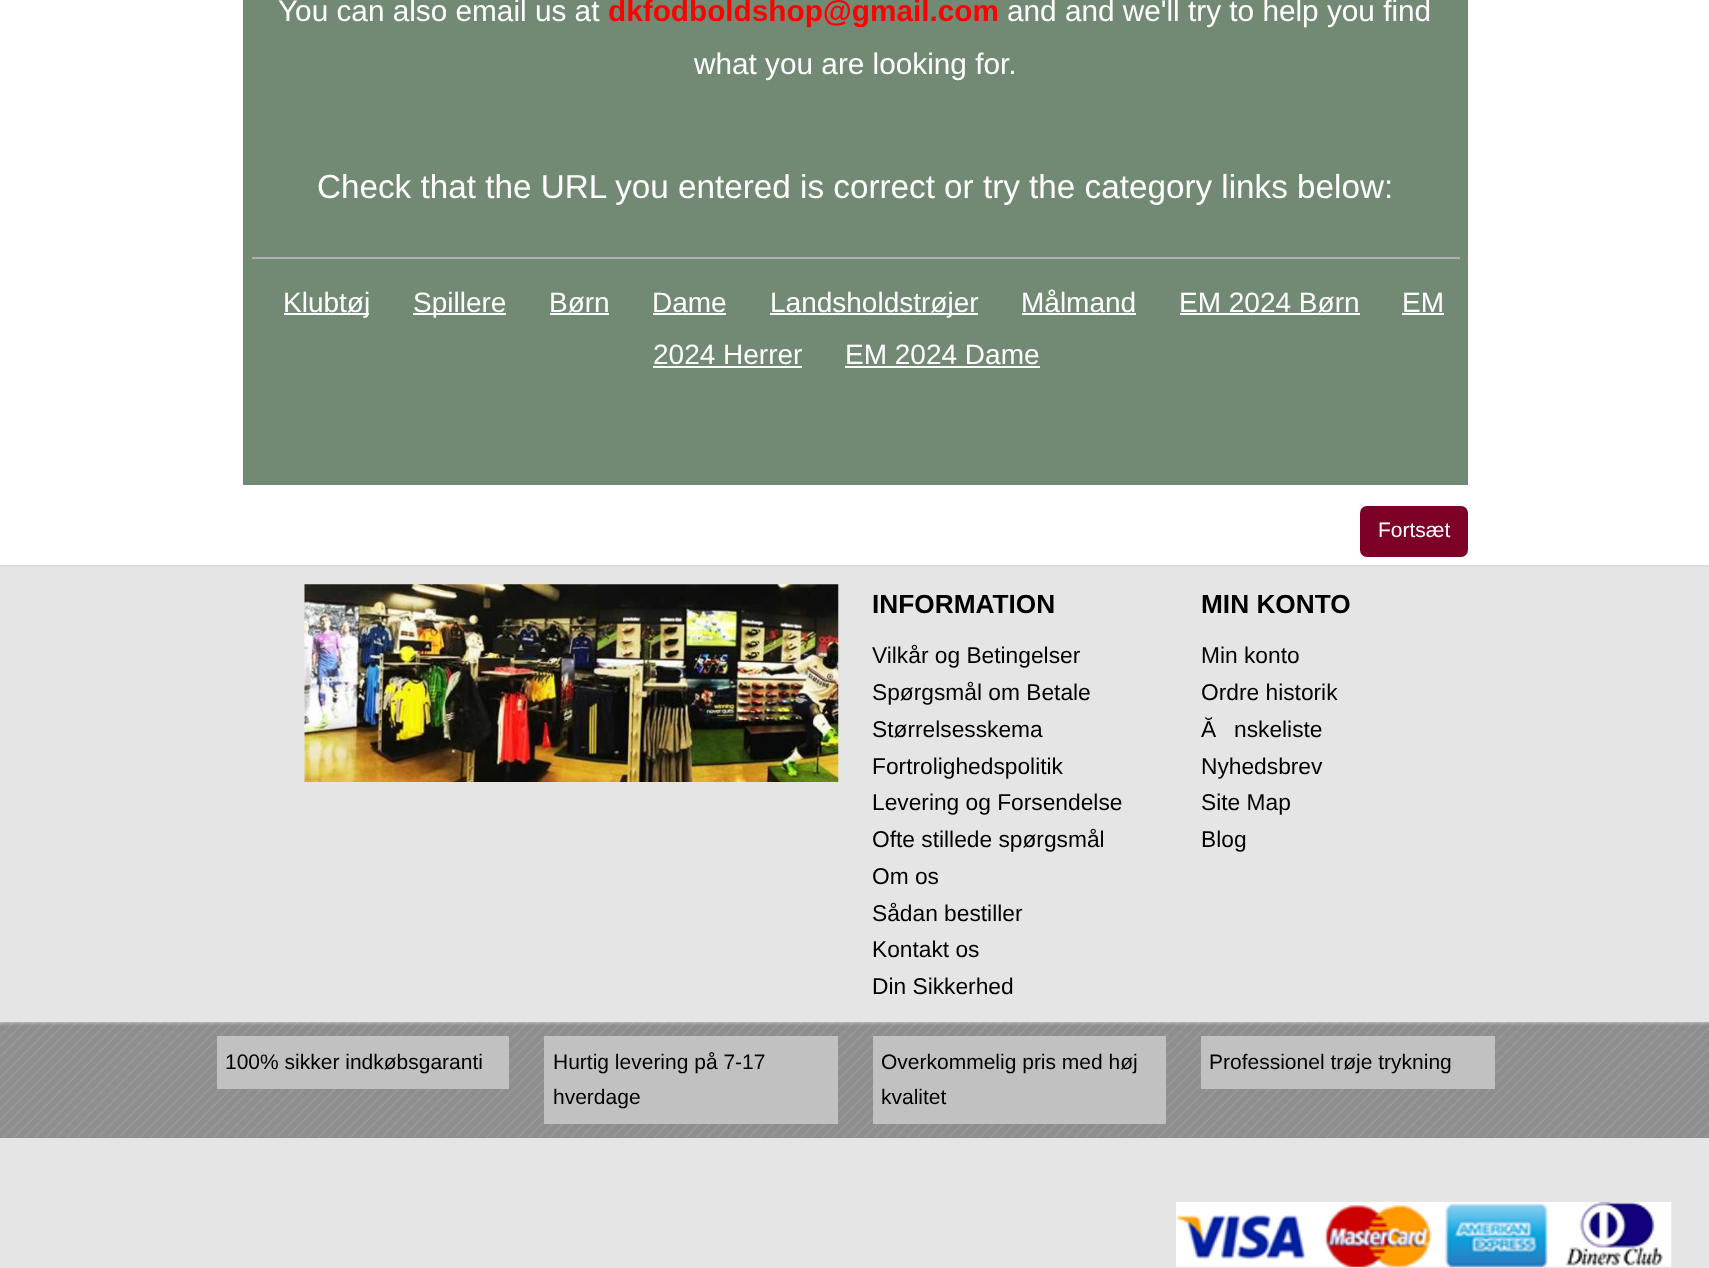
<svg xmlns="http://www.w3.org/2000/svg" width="1709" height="1268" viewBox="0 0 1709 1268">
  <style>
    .t1 { font: 29.75px Liberation Sans; fill: #fff; }
    .t2 { font: bold 29.75px Liberation Sans; fill: #f00; }
    .t3 { font: 33.25px Liberation Sans; fill: #fff; }
    .t4 { font: 28px Liberation Sans; fill: #fff; }
    .t5 { font: 21px Liberation Sans; fill: #fff; }
    .t6 { font: bold 26.25px Liberation Sans; fill: #000; }
    .t7 { font: 22.75px Liberation Sans; fill: #000; }
    .t8 { font: 21px Liberation Sans; fill: #000; }
  </style>
  <rect width="100%" height="100%" fill="#fff"/>
  <rect x="243" y="0" width="1225" height="485" fill="#728a73"/>
  <text x="278" y="21" class="t1">You can also email us at</text>
  <text x="608" y="21" class="t2">dkfodboldshop@gmail.com</text>
  <text x="1007" y="21" class="t1">and and we'll try to help you find</text>
  <text x="694" y="74" class="t1">what you are looking for.</text>
  <rect x="252" y="257" width="1208" height="2" fill="#b1b1b1"/>
  <text x="317" y="198" class="t3">Check that the URL you entered is correct or try the category links below:</text>
  <rect x="284" y="313" width="85" height="2" fill="#fff"/>
  <text x="283" y="312" class="t4">Klubtøj</text>
  <rect x="413" y="313" width="93" height="2" fill="#fff"/>
  <text x="413" y="312" class="t4">Spillere</text>
  <text x="549" y="312" class="t4">Børn</text>
  <rect x="550" y="313" width="59" height="2" fill="#fff"/>
  <text x="652" y="312" class="t4">Dame</text>
  <rect x="653" y="313" width="73" height="2" fill="#fff"/>
  <rect x="770" y="313" width="208" height="2" fill="#fff"/>
  <text x="770" y="312" class="t4">Landsholdstrøjer</text>
  <text x="1021" y="312" class="t4">Målmand</text>
  <rect x="1022" y="313" width="114" height="2" fill="#fff"/>
  <text x="1179" y="312" class="t4">EM 2024 Børn</text>
  <rect x="1180" y="313" width="180" height="2" fill="#fff"/>
  <text x="1402" y="312" class="t4">EM</text>
  <rect x="1402" y="313" width="42" height="2" fill="#fff"/>
  <text x="653" y="364" class="t4">2024 Herrer</text>
  <rect x="653" y="366" width="149" height="2" fill="#fff"/>
  <text x="845" y="364" class="t4">EM 2024 Dame</text>
  <rect x="845" y="366" width="195" height="2" fill="#fff"/>
  <rect x="1360" y="506" width="108" height="51" rx="7" fill="#7d0026"/>
  <text x="1378" y="537" class="t5">Fortsæt</text>
  <rect x="0" y="567" width="1709" height="701" fill="#e5e5e5"/>
  <rect x="0" y="565" width="1709" height="2" fill="#d9dcdf"/>
  <image x="304" y="584" width="535" height="198" href="images/1.png"/>
  <text x="872" y="613" class="t6">INFORMATION</text>
  <text x="872" y="663" class="t7">Vilkår og Betingelser</text>
  <text x="872" y="700" class="t7">Spørgsmål om Betale</text>
  <text x="872" y="737" class="t7">Størrelsesskema</text>
  <text x="872" y="774" class="t7">Fortrolighedspolitik</text>
  <text x="872" y="810" class="t7">Levering og Forsendelse</text>
  <text x="872" y="847" class="t7">Ofte stillede spørgsmål</text>
  <text x="872" y="884" class="t7">Om os</text>
  <text x="872" y="921" class="t7">Sådan bestiller</text>
  <text x="872" y="957" class="t7">Kontakt os</text>
  <text x="872" y="994" class="t7">Din Sikkerhed</text>
  <text x="1201" y="613" class="t6">MIN KONTO</text>
  <text x="1201" y="663" class="t7">Min konto</text>
  <text x="1201" y="700" class="t7">Ordre historik</text>
  <text x="1201" y="737" class="t7">Ă</text>
  <text x="1234" y="737" class="t7">nskeliste</text>
  <text x="1201" y="774" class="t7">Nyhedsbrev</text>
  <text x="1201" y="810" class="t7">Site Map</text>
  <text x="1201" y="847" class="t7">Blog</text>
  <rect x="0" y="1022" width="1709" height="116" fill="#8e8e8e"/>
  <image x="0" y="1022" width="1709" height="115" href="images/2.png"/>
  <rect x="217" y="1036" width="292" height="53" fill="#c1c1c1"/>
  <text x="225" y="1069" class="t8">100% sikker indkøbsgaranti</text>
  <rect x="544" y="1036" width="294" height="88" fill="#c1c1c1"/>
  <text x="553" y="1069" class="t8">Hurtig levering på 7-17</text>
  <text x="553" y="1104" class="t8">hverdage</text>
  <rect x="873" y="1036" width="293" height="88" fill="#c1c1c1"/>
  <text x="881" y="1069" class="t8">Overkommelig pris med høj</text>
  <text x="881" y="1104" class="t8">kvalitet</text>
  <rect x="1201" y="1036" width="294" height="53" fill="#c1c1c1"/>
  <text x="1209" y="1069" class="t8">Professionel trøje trykning</text>
  <image x="1176" y="1202" width="496" height="65" href="images/3.png"/>
</svg>
